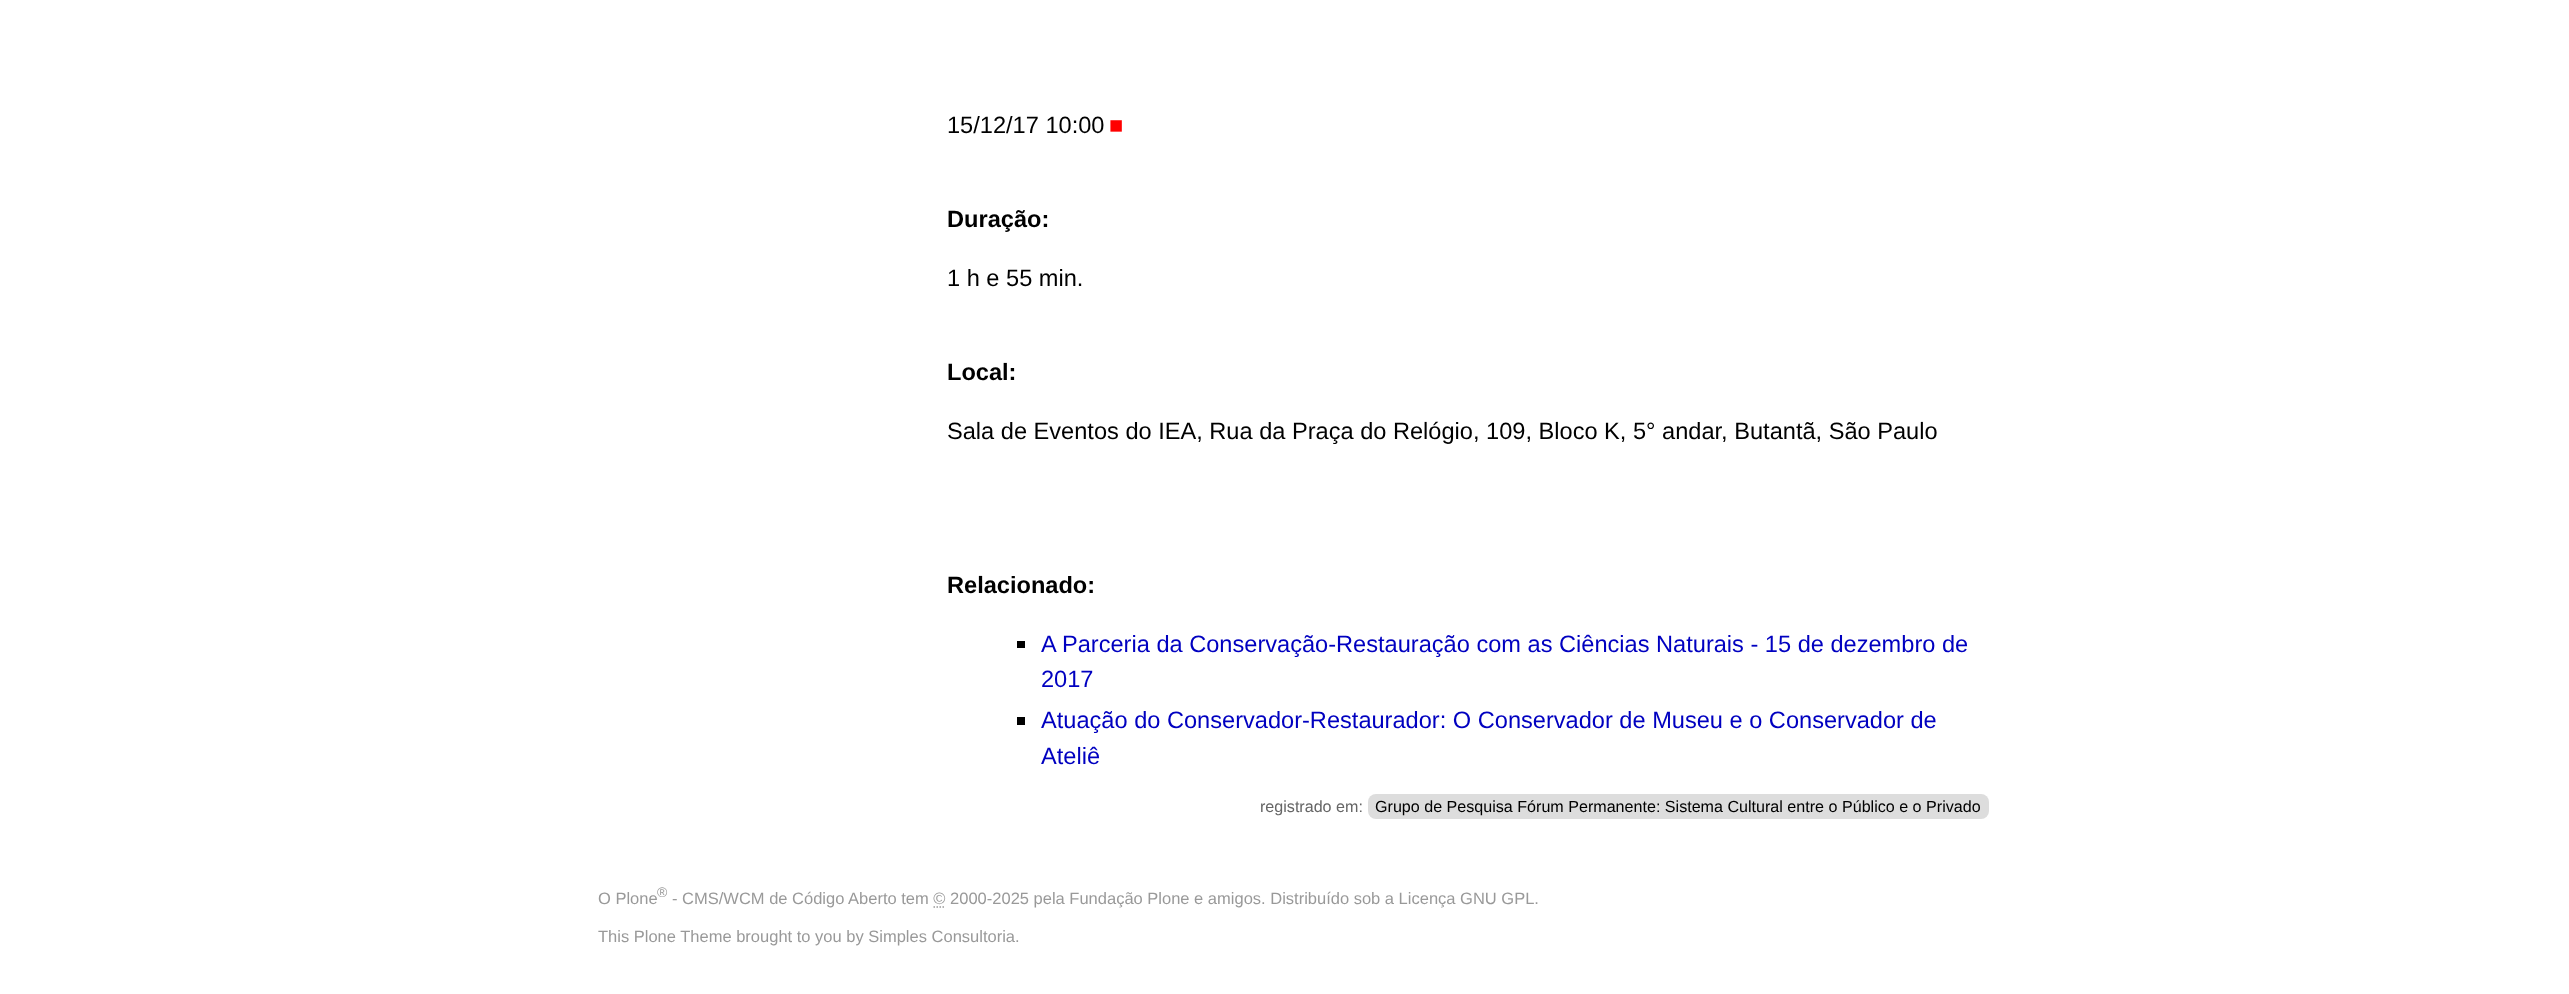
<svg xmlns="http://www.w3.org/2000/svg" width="2569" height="994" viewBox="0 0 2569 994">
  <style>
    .t1 { font: 23.6px Liberation Sans; fill: #000; }
    .t2 { font: 23.6px Liberation Sans; fill: #f00; }
    .t3 { font: bold 23.6px Liberation Sans; fill: #000; }
    .t4 { font: 23.6px Liberation Sans; fill: #0000c0; }
    .t5 { font: 16.1px Liberation Sans; fill: #666; }
    .t6 { font: 16.1px Liberation Sans; fill: #000; }
    .t7 { font: 16.5px Liberation Sans; fill: #999; }
    .t8 { font: 14px Liberation Sans; fill: #999; }
  </style>
  <rect width="100%" height="100%" fill="#fff"/>
  <text x="947" y="133" class="t1">15/12/17 10:00</text>
  <text x="1109" y="133" class="t2">■</text>
  <text x="947" y="227" class="t3">Duração:</text>
  <text x="947" y="286" class="t1">1 h e 55 min.</text>
  <text x="947" y="380" class="t3">Local:</text>
  <text x="947" y="439" class="t1">Sala de Eventos do IEA, Rua da Praça do Relógio, 109, Bloco K, 5° andar, Butantã, São Paulo</text>
  <text x="947" y="593" class="t3">Relacionado:</text>
  <rect x="1017" y="641" width="8" height="7" fill="#000"/>
  <text x="1041" y="652" class="t4">A Parceria da Conservação-Restauração com as Ciências Naturais - 15 de dezembro de</text>
  <text x="1041" y="687" class="t4">2017</text>
  <rect x="1017" y="717" width="8" height="8" fill="#000"/>
  <text x="1041" y="728" class="t4">Atuação do Conservador-Restaurador: O Conservador de Museu e o Conservador de</text>
  <text x="1041" y="764" class="t4">Ateliê</text>
  <text x="1260" y="812" class="t5">registrado em:</text>
  <rect x="1368" y="794" width="621" height="25" rx="8" fill="#ddd"/>
  <text x="1375" y="812" class="t6">Grupo de Pesquisa Fórum Permanente: Sistema Cultural entre o Público e o Privado</text>
  <text x="598" y="904" class="t7">O Plone</text>
  <text x="657" y="897" class="t8">®</text>
  <text x="672" y="904" class="t7">- CMS/WCM de Código Aberto tem © 2000-2025 pela Fundação Plone e amigos. Distribuído sob a Licença GNU GPL.</text>
  <path d="M933.5 907H945.5" fill="none" stroke="#999" stroke-width="1.5" stroke-dasharray="1.5 1.5"/>
  <text x="598" y="942" class="t7">This Plone Theme brought to you by Simples Consultoria.</text>
</svg>
